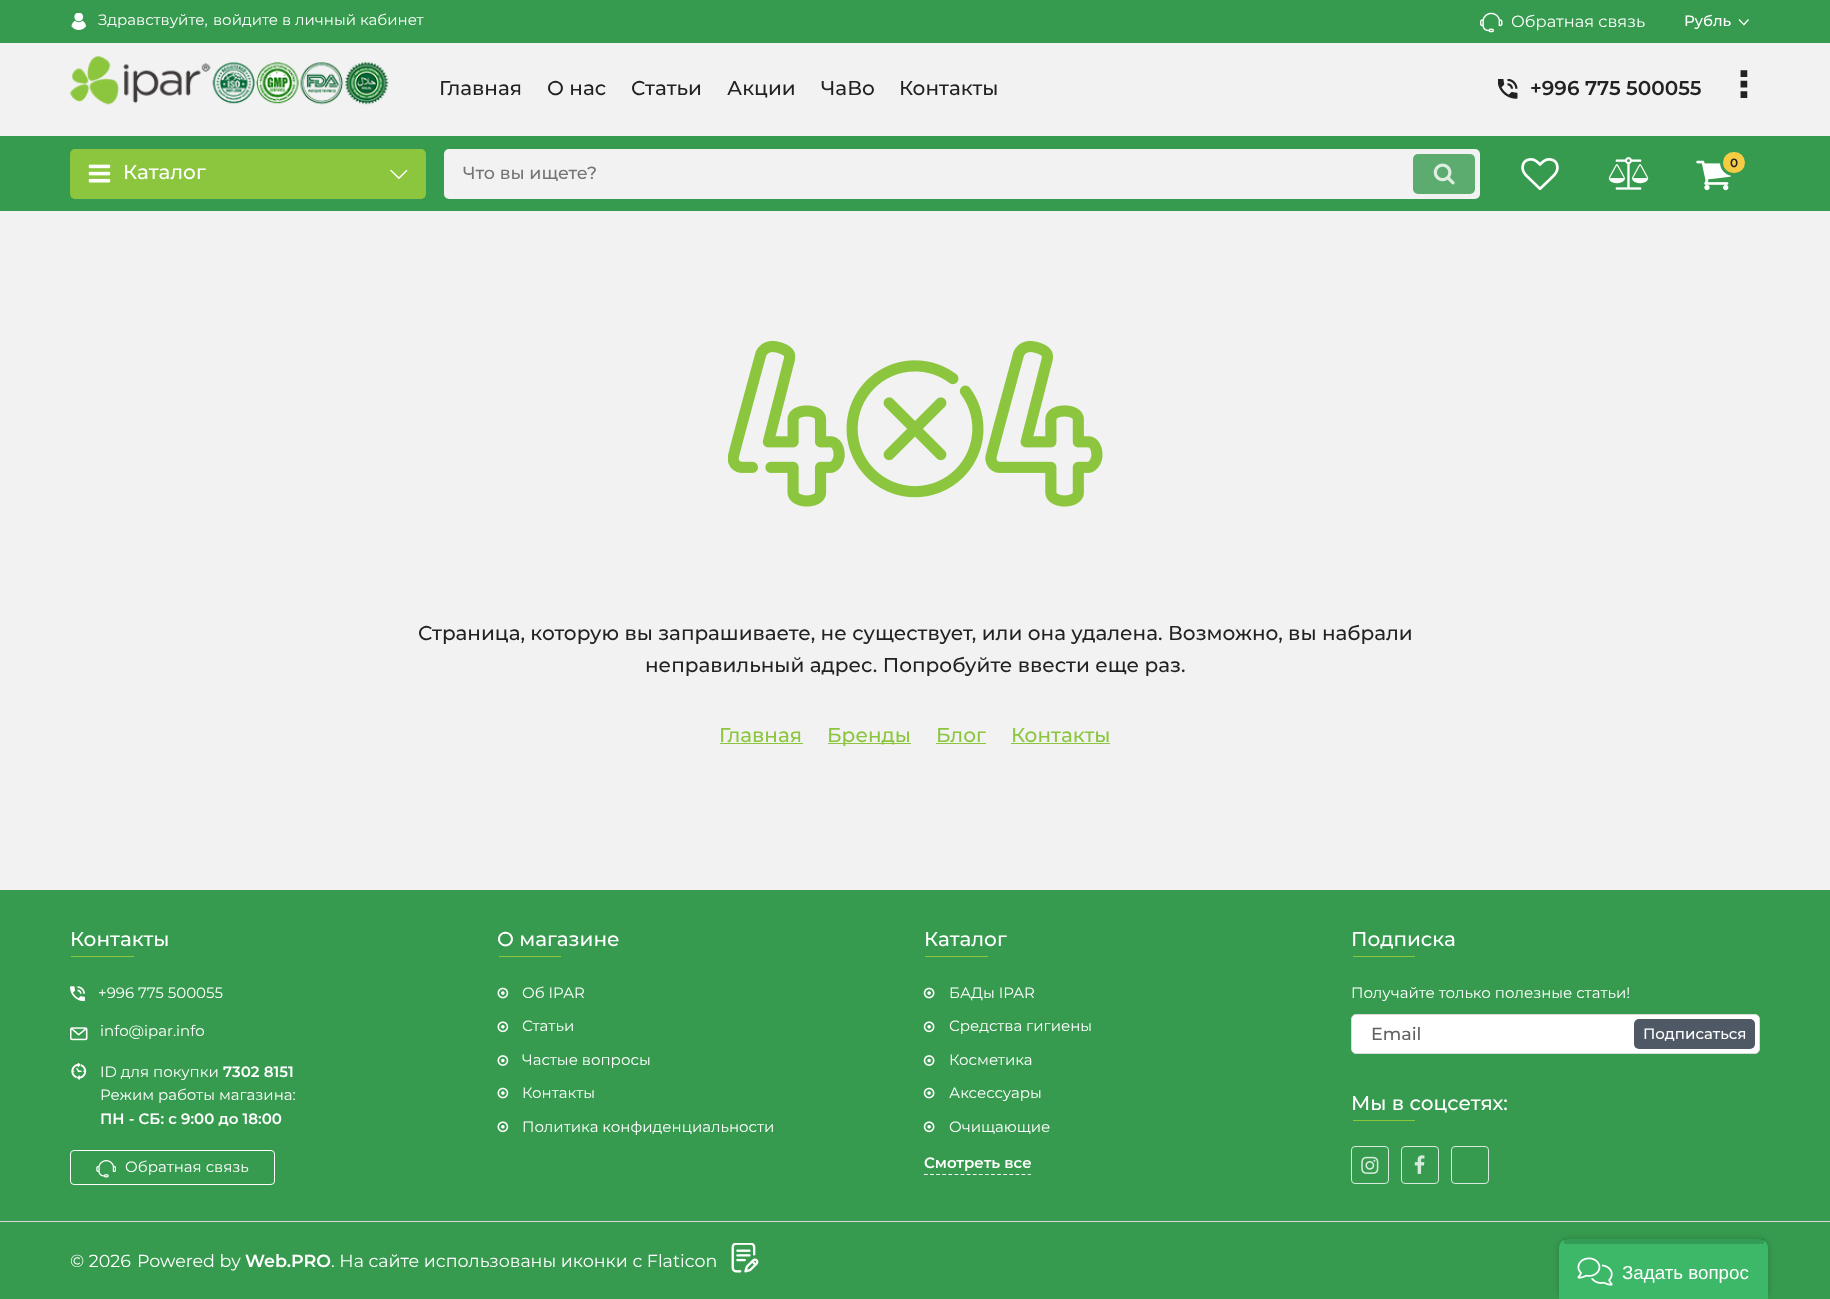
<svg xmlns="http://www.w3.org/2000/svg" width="1830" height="1299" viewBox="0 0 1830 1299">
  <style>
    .t1 { font: 15px Montserrat; fill: #fff; }
    .t2 { font: 16.25px Montserrat; fill: #fff; }
    .t3 { font: 500 15px Montserrat; fill: #fff; }
    .t4 { font: 500 20px Montserrat; fill: #222; }
    .t5 { font: 600 20px Montserrat; fill: #222; }
    .t6 { font: bold 38px DejaVu Sans; fill: #222; }
    .t7 { font: 600 12px Montserrat; fill: #222; }
    .t8 { font: 500 20px Montserrat; fill: #fff; }
    .t9 { font: 500 17.5px Montserrat; fill: #757575; }
    .t10 { font: 500 20px Montserrat; fill: #8bc63e; }
    .t11 { font: 600 15px Montserrat; fill: #fff; }
    .t12 { font: 500 17.5px Montserrat; fill: #626262; }
    .t13 { font: 17.5px Montserrat; fill: #fff; }
    .t14 { font: 600 17.5px Montserrat; fill: #fff; }
    .t15 { font: 18.75px Liberation Sans; fill: #fff; }
  </style>
  <rect width="100%" height="100%" fill="#f2f2f2"/>
  <rect x="0" y="0" width="1830" height="43" fill="#369b4f"/>
  <image x="71" y="13" width="16" height="17" href="images/1.png"/>
  <text x="98" y="25" class="t1">Здравствуйте,</text>
  <text x="213" y="25" class="t1">войдите в личный кабинет</text>
  <image x="1480" y="12" width="23" height="21" href="images/2.png"/>
  <text x="1511" y="27" class="t2">Обратная связь</text>
  <text x="1684" y="26" class="t3">Рубль</text>
  <path d="M1748 19L1749 20L1744 25.5L1743 24.5Z" fill="#fff"/>
  <path d="M1739.5 19L1744.5 24.5L1744 25.5L1738.5 20Z" fill="#fff"/>
  <image x="70" y="56" width="319" height="50" href="images/3.png"/>
  <text x="439" y="95" class="t4">Главная</text>
  <text x="547" y="95" class="t4">О нас</text>
  <text x="631" y="95" class="t4">Статьи</text>
  <text x="727" y="95" class="t4">Акции</text>
  <text x="821" y="95" class="t4">ЧаВо</text>
  <text x="899" y="95" class="t4">Контакты</text>
  <image x="1498" y="79" width="20" height="20" href="images/4.png"/>
  <text x="1530" y="95" class="t5">+996 775 500055</text>
  <text x="1735" y="101" class="t6">⠇</text>
  <rect x="0" y="136" width="1830" height="75" fill="#369b4f"/>
  <image x="1521" y="158" width="38" height="33" href="images/5.png"/>
  <image x="1608" y="157" width="41" height="33" href="images/6.png"/>
  <image x="1696" y="160" width="36" height="31" href="images/7.png"/>
  <rect x="1721.5" y="150.5" width="25" height="24" rx="12" fill="#f5cc43" stroke="#369b4f" stroke-width="3"/>
  <text x="1730" y="167" class="t7">0</text>
  <rect x="70" y="149" width="356" height="50" rx="5" fill="#8bc63e"/>
  <image x="88" y="164" width="23" height="19" href="images/8.png"/>
  <text x="123" y="179" class="t8">Каталог</text>
  <image x="390" y="169" width="18" height="10" href="images/9.png"/>
  <rect x="444" y="149" width="1036" height="50" rx="5" fill="#f2f2f2"/>
  <text x="463" y="179" class="t9">Что вы ищете?</text>
  <rect x="1413" y="154" width="62" height="40" rx="5" fill="#5cac70"/>
  <image x="1433" y="163" width="22" height="22" href="images/10.png"/>
  <image x="728" y="340" width="375" height="167" href="images/11.png"/>
  <text x="418" y="640" class="t4">Страница, которую вы запрашиваете, не существует, или она удалена. Возможно, вы набрали</text>
  <text x="645" y="672" class="t4">неправильный адрес. Попробуйте ввести еще раз.</text>
  <text x="719" y="742" class="t10">Главная</text>
  <rect x="720" y="743" width="83" height="1" fill="#8bc63e"/>
  <rect x="828" y="743" width="83" height="1" fill="#8bc63e"/>
  <text x="827" y="742" class="t10">Бренды</text>
  <text x="936" y="742" class="t10">Блог</text>
  <rect x="936" y="743" width="50" height="1" fill="#8bc63e"/>
  <text x="1011" y="742" class="t10">Контакты</text>
  <rect x="1011" y="743" width="99" height="1" fill="#8bc63e"/>
  <rect x="0" y="890" width="1830" height="409" fill="#369b4f"/>
  <text x="70" y="946" class="t8">Контакты</text>
  <rect x="71" y="956" width="63" height="1" fill="#8bc63e"/>
  <image x="70" y="986" width="15" height="15" href="images/12.png"/>
  <text x="98" y="998" class="t1">+996 775 500055</text>
  <image x="70" y="1027" width="18" height="14" href="images/13.png"/>
  <text x="100" y="1036" class="t1">info@ipar.info</text>
  <image x="71" y="1063" width="16" height="17" href="images/14.png"/>
  <text x="100" y="1077" class="t1">ID для покупки</text>
  <text x="223" y="1077" class="t11">7302 8151</text>
  <text x="100" y="1100" class="t1">Режим работы магазина:</text>
  <text x="100" y="1124" class="t11">ПН - CБ: с 9:00 до 18:00</text>
  <rect x="70.5" y="1150.5" width="204" height="34" rx="3.5" fill="none" stroke="#fff"/>
  <image x="96" y="1160" width="20" height="18" href="images/15.png"/>
  <text x="125" y="1172" class="t1">Обратная связь</text>
  <text x="497" y="946" class="t8">О магазине</text>
  <rect x="499" y="956" width="62" height="1" fill="#8bc63e"/>
  <image x="497" y="987" width="12" height="12" href="images/16.png"/>
  <text x="522" y="998" class="t1">Об IPAR</text>
  <image x="497" y="1021" width="12" height="12" href="images/17.png"/>
  <text x="522" y="1031" class="t1">Статьи</text>
  <image x="497" y="1055" width="12" height="11" href="images/18.png"/>
  <text x="522" y="1065" class="t1">Частые вопросы</text>
  <image x="497" y="1087" width="12" height="12" href="images/16.png"/>
  <text x="522" y="1098" class="t1">Контакты</text>
  <image x="497" y="1121" width="12" height="12" href="images/17.png"/>
  <text x="522" y="1132" class="t1">Политика конфиденциальности</text>
  <text x="924" y="946" class="t8">Каталог</text>
  <rect x="925" y="956" width="63" height="1" fill="#8bc63e"/>
  <image x="923" y="987" width="12" height="12" href="images/19.png"/>
  <text x="949" y="998" class="t1">БАДы IPAR</text>
  <image x="923" y="1021" width="12" height="12" href="images/20.png"/>
  <text x="949" y="1031" class="t1">Средства гигиены</text>
  <image x="923" y="1055" width="12" height="11" href="images/21.png"/>
  <text x="949" y="1065" class="t1">Косметика</text>
  <image x="923" y="1087" width="12" height="12" href="images/19.png"/>
  <text x="949" y="1098" class="t1">Аксессуары</text>
  <image x="923" y="1121" width="12" height="12" href="images/20.png"/>
  <text x="949" y="1132" class="t1">Очищающие</text>
  <path d="M924 1174.5H1031" fill="none" stroke="#fff" stroke-width="1.2" stroke-dasharray="3.75 2.35"/>
  <text x="924" y="1168" class="t11">Смотреть все</text>
  <text x="1351" y="946" class="t8">Подписка</text>
  <rect x="1353" y="956" width="62" height="1" fill="#8bc63e"/>
  <text x="1351" y="998" class="t1">Получайте только полезные статьи!</text>
  <rect x="1351.5" y="1014.5" width="408" height="39" rx="4.5" fill="#fff" stroke="#dbdbdb"/>
  <text x="1371" y="1040" class="t12">Email</text>
  <rect x="1634" y="1019" width="121" height="30" rx="5" fill="#4f5965"/>
  <text x="1643" y="1039" class="t3">Подписаться</text>
  <text x="1351" y="1110" class="t8">Мы в соцсетях:</text>
  <rect x="1353" y="1120" width="62" height="1" fill="#8bc63e"/>
  <rect x="1351.5" y="1146.5" width="37" height="37" rx="3.5" fill="none" stroke="#d7ebdc"/>
  <image x="1361" y="1156" width="18" height="18" href="images/22.png"/>
  <rect x="1401.5" y="1146.5" width="37" height="37" rx="3.5" fill="none" stroke="#d7ebdc"/>
  <image x="1414" y="1155" width="11" height="19" href="images/23.png"/>
  <rect x="1451.5" y="1146.5" width="37" height="37" rx="3.5" fill="none" stroke="#d7ebdc"/>
  <rect x="0" y="1221" width="1830" height="1" fill="#dbdbdb"/>
  <text x="70" y="1267" class="t13">© 2026</text>
  <text x="137" y="1267" class="t13">Powered by</text>
  <text x="245" y="1267" class="t14">Web.PRO</text>
  <text x="331" y="1267" class="t13">. На сайте использованы иконки с Flaticon</text>
  <image x="731" y="1243" width="28" height="30" href="images/24.png"/>
  <rect x="1559" y="1239" width="209" height="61" rx="9" fill="#00000033" filter="blur(3px)"/>
  <path d="M1568 1239H1759C1764 1239 1768 1243 1768 1248V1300H1559V1248C1559 1243 1563 1239 1568 1239Z" fill="#3cb868"/>
  <rect x="1564" y="1239" width="200" height="5" fill="#00000026"/>
  <image x="1577" y="1257" width="36" height="29" href="images/25.png"/>
  <text x="1622" y="1279" class="t15">Задать вопрос</text>
</svg>
